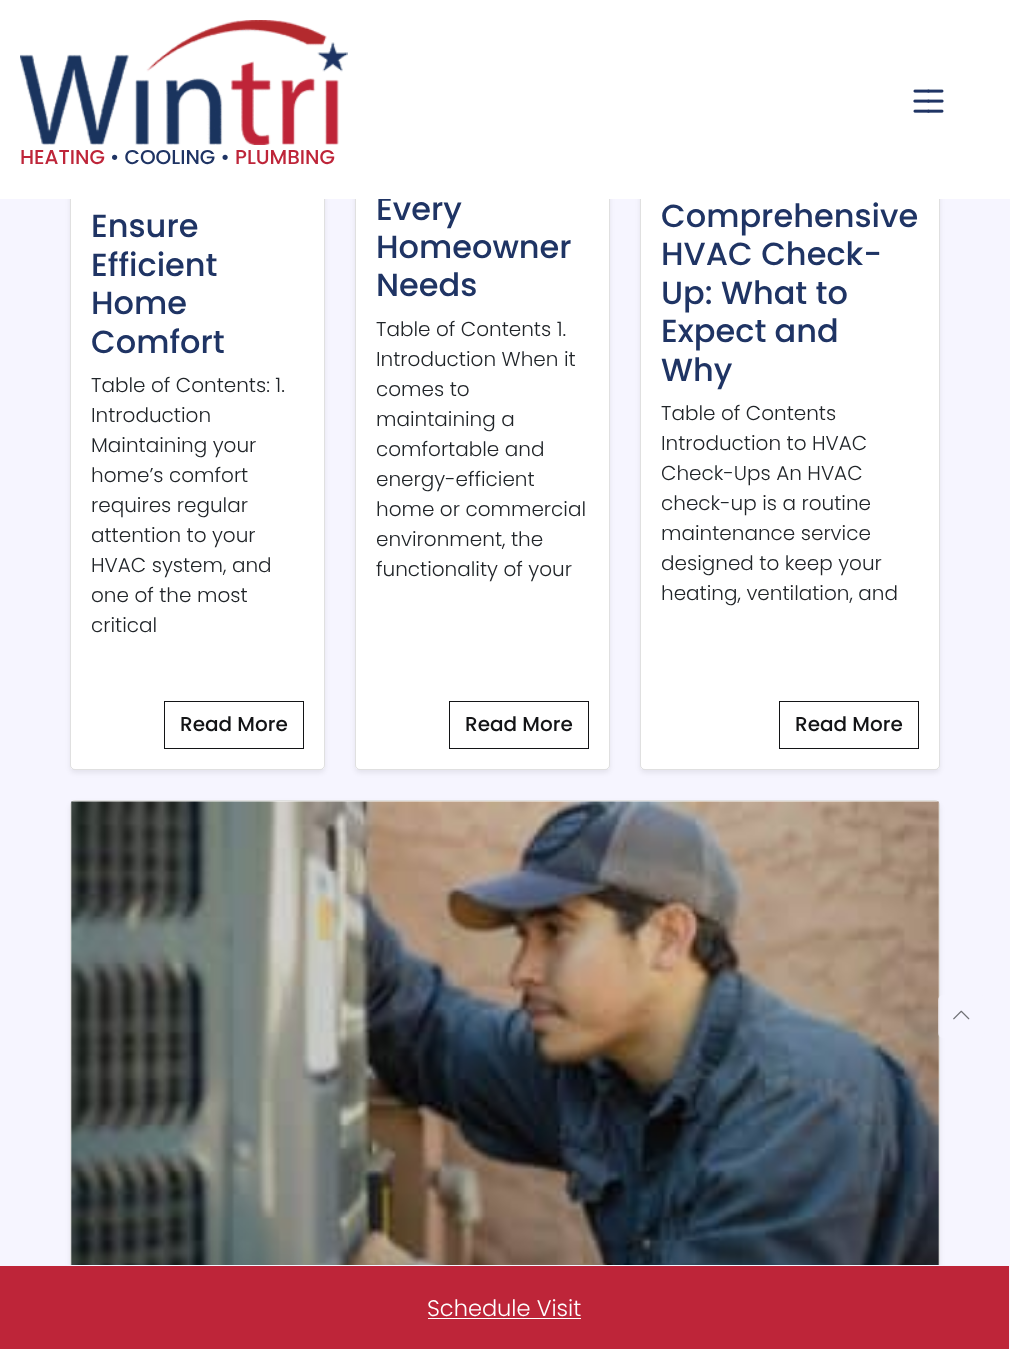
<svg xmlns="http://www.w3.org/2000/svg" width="1010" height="1349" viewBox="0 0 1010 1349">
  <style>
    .t1 { font: 500 32px Poppins; fill: #1f3464; }
    .t2 { font: 500 20px Poppins; fill: #be2539; }
    .t3 { font: 500 20px Poppins; fill: #1f3464; }
    .t4 { font: 300 20px Poppins; fill: #212529; }
    .t5 { font: 500 20px Poppins; fill: #131416; }
    .t6 { font: 300 22.5px Poppins; fill: #fff; }
  </style>
  <rect width="100%" height="100%" fill="#f6f5ff"/>
  <rect x="70" y="-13" width="255" height="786" rx="5" fill="#00000012" filter="blur(2.5px)"/>
  <rect x="70" y="-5" width="255" height="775" rx="5" fill="#fff"/>
  <rect x="70.5" y="-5.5" width="254" height="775" rx="4.5" fill="none" stroke="#0000001f"/>
  <rect x="355" y="-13" width="255" height="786" rx="5" fill="#00000012" filter="blur(2.5px)"/>
  <rect x="355" y="-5" width="255" height="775" rx="5" fill="#fff"/>
  <rect x="355.5" y="-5.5" width="254" height="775" rx="4.5" fill="none" stroke="#0000001f"/>
  <text x="376" y="220" class="t1">Every</text>
  <rect x="640" y="-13" width="300" height="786" rx="5" fill="#00000012" filter="blur(2.5px)"/>
  <rect x="640" y="-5" width="300" height="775" rx="5" fill="#fff"/>
  <rect x="640.5" y="-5.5" width="299" height="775" rx="4.5" fill="none" stroke="#0000001f"/>
  <rect x="0" y="0" width="1010" height="199" fill="#fff"/>
  <image x="913" y="89" width="31" height="24" href="images/1.png"/>
  <image x="20" y="20" width="328" height="125" href="images/2.png"/>
  <text x="20" y="164" class="t2">HEATING</text>
  <text x="110" y="164" class="t3">• COOLING •</text>
  <text x="235" y="164" class="t2">PLUMBING</text>
  <text x="91" y="237" class="t1">Ensure</text>
  <text x="91" y="276" class="t1">Efficient</text>
  <text x="91" y="314" class="t1">Home</text>
  <text x="91" y="353" class="t1">Comfort</text>
  <text x="91" y="392" class="t4">Table of Contents: 1.</text>
  <text x="91" y="422" class="t4">Introduction</text>
  <text x="91" y="452" class="t4">Maintaining your</text>
  <text x="91" y="482" class="t4">home’s comfort</text>
  <text x="91" y="512" class="t4">requires regular</text>
  <text x="91" y="542" class="t4">attention to your</text>
  <text x="91" y="572" class="t4">HVAC system, and</text>
  <text x="91" y="602" class="t4">one of the most</text>
  <text x="91" y="632" class="t4">critical</text>
  <rect x="164.5" y="701.5" width="139" height="47" fill="none" stroke="#131416"/>
  <text x="180" y="731" class="t5">Read More</text>
  <text x="376" y="258" class="t1">Homeowner</text>
  <text x="376" y="296" class="t1">Needs</text>
  <text x="376" y="336" class="t4">Table of Contents 1.</text>
  <text x="376" y="366" class="t4">Introduction When it</text>
  <text x="376" y="396" class="t4">comes to</text>
  <text x="376" y="426" class="t4">maintaining a</text>
  <text x="376" y="456" class="t4">comfortable and</text>
  <text x="376" y="486" class="t4">energy-efficient</text>
  <text x="376" y="516" class="t4">home or commercial</text>
  <text x="376" y="546" class="t4">environment, the</text>
  <text x="376" y="576" class="t4">functionality of your</text>
  <rect x="449.5" y="701.5" width="139" height="47" fill="none" stroke="#131416"/>
  <text x="465" y="731" class="t5">Read More</text>
  <text x="661" y="227" class="t1">Comprehensive</text>
  <text x="661" y="265" class="t1">HVAC Check-</text>
  <text x="661" y="304" class="t1">Up: What to</text>
  <text x="661" y="342" class="t1">Expect and</text>
  <text x="661" y="381" class="t1">Why</text>
  <text x="661" y="420" class="t4">Table of Contents</text>
  <text x="661" y="450" class="t4">Introduction to HVAC</text>
  <text x="661" y="480" class="t4">Check-Ups An HVAC</text>
  <text x="661" y="510" class="t4">check-up is a routine</text>
  <text x="661" y="540" class="t4">maintenance service</text>
  <text x="661" y="570" class="t4">designed to keep your</text>
  <text x="661" y="600" class="t4">heating, ventilation, and</text>
  <rect x="779.5" y="701.5" width="139" height="47" fill="none" stroke="#131416"/>
  <text x="795" y="731" class="t5">Read More</text>
  <rect x="70" y="803" width="870" height="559" rx="5" fill="#00000012" filter="blur(2.5px)"/>
  <rect x="70" y="800" width="870" height="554" rx="5" fill="#fff"/>
  <rect x="70.5" y="800.5" width="869" height="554" rx="4.5" fill="none" stroke="#0000001f"/>
  <image x="71" y="801" width="868" height="464" href="images/3.png"/>
  <rect x="938" y="995" width="47" height="43" rx="5" fill="#f6f5ff99"/>
  <image x="953" y="1010" width="17" height="10" href="images/4.png"/>
  <rect x="67" y="1265" width="876" height="1" fill="#f6f5ff"/>
  <rect x="0" y="1266" width="1009" height="83" fill="#be2539"/>
  <text x="427" y="1316" class="t6">Schedule Visit</text>
  <rect x="428" y="1318" width="153" height="1" fill="#fff"/>
</svg>
